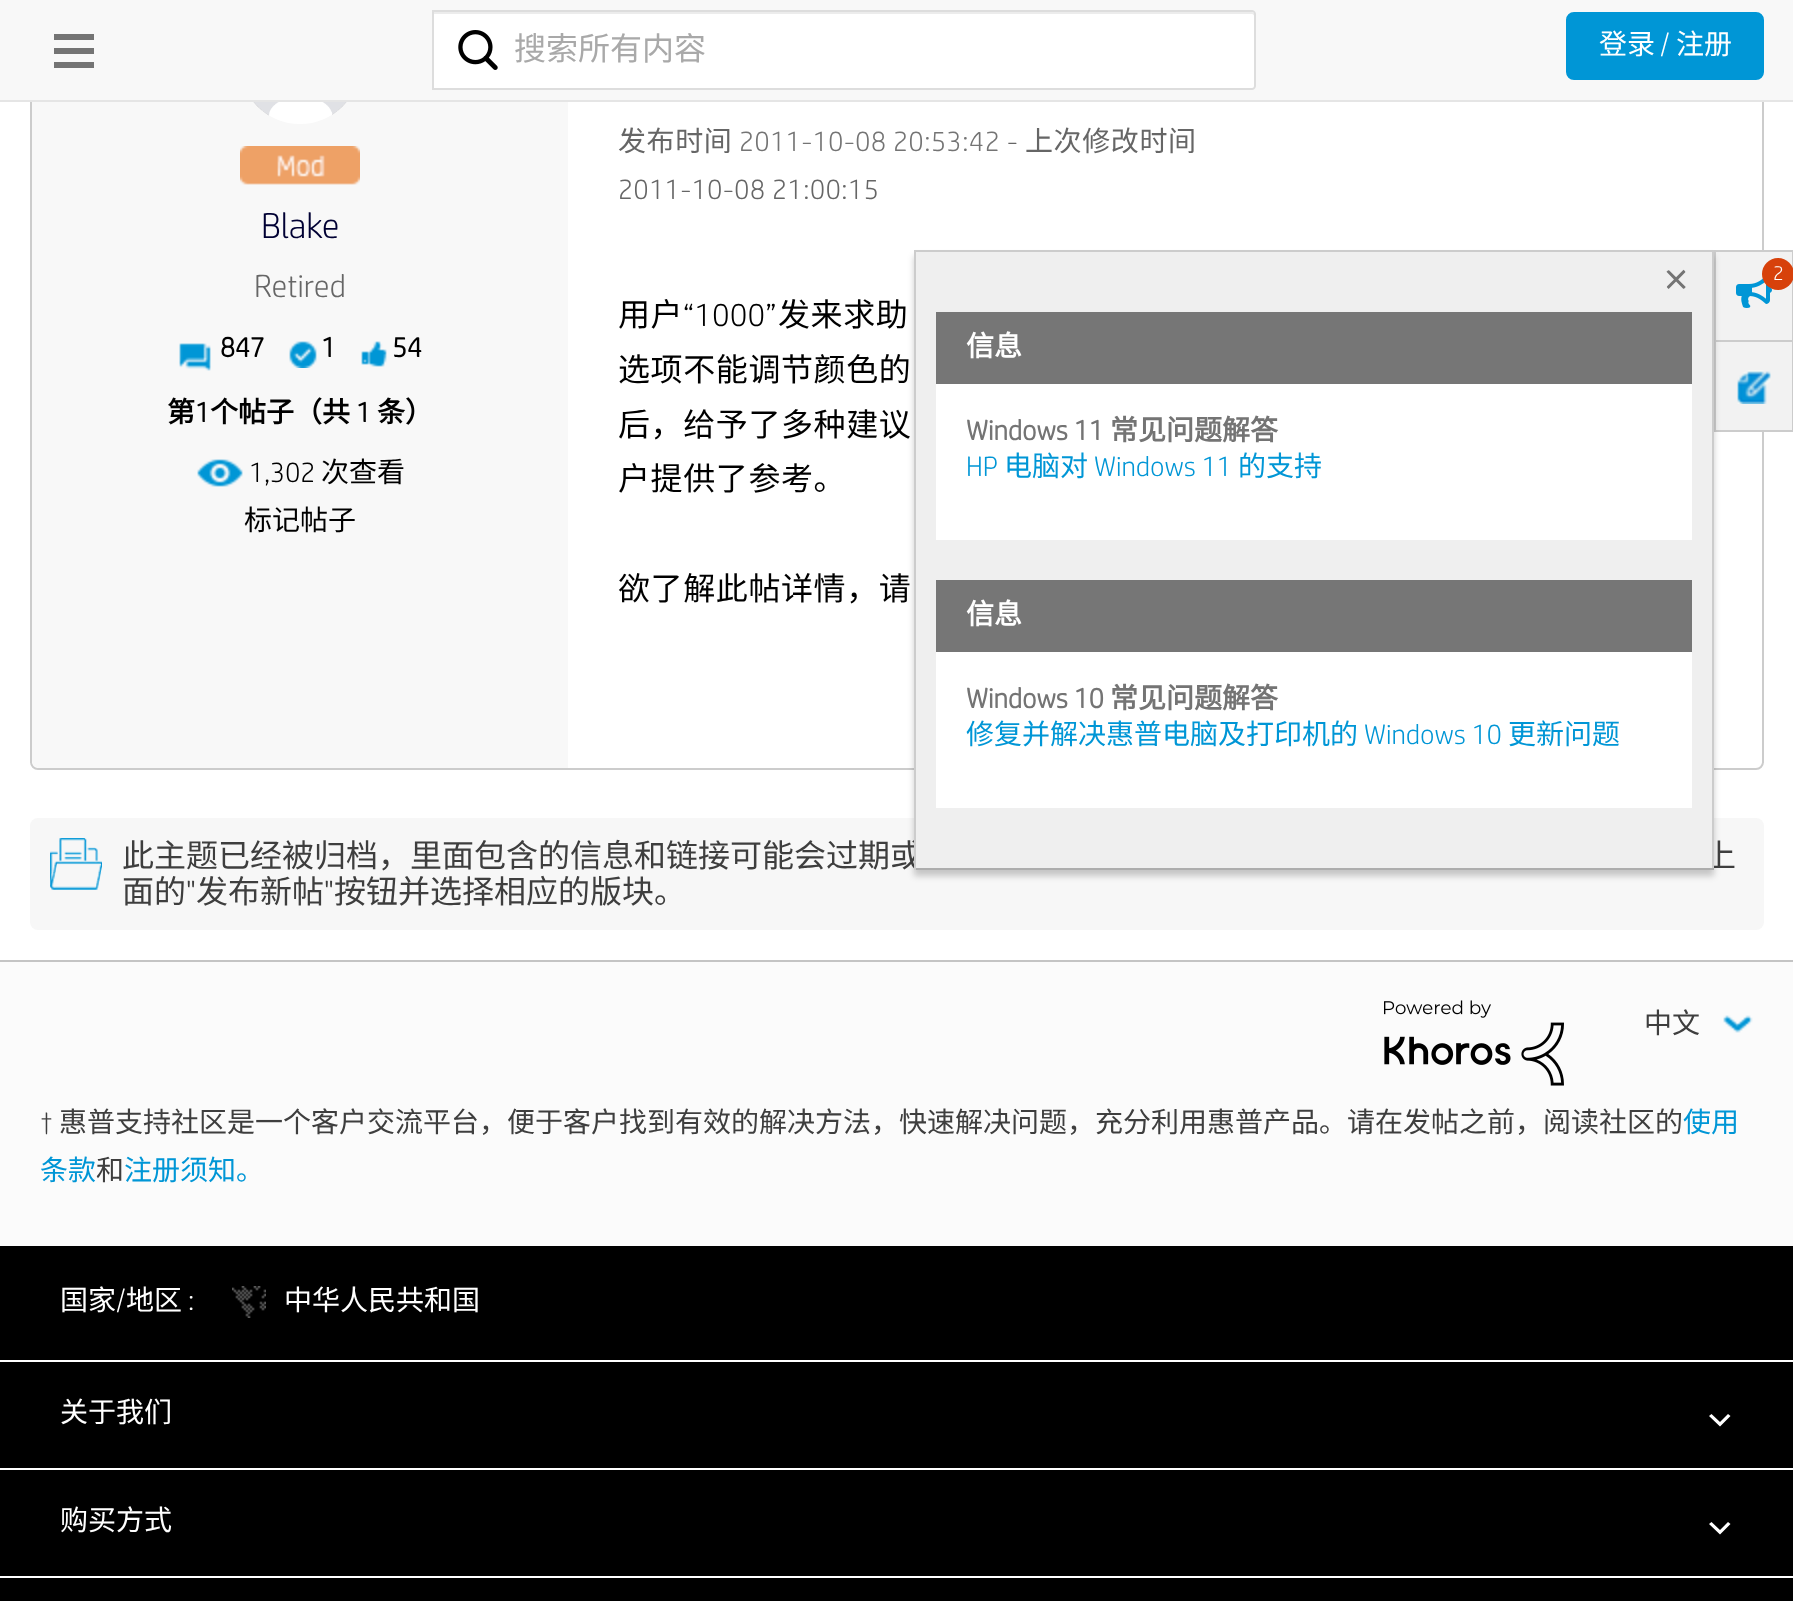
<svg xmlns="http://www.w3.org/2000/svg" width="1793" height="1601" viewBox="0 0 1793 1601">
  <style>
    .t1 { font: 32px Noto Sans CJK SC; fill: #a9a9a9; }
    .t2 { font: 28px Noto Sans CJK SC; fill: #fff; }
    .t3 { font: 300 28px 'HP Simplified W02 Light'; fill: #fff; }
    .t4 { font: 32px Noto Sans CJK SC; fill: #3e3e3e; }
    .t5 { font: 300 60px 'HP Simplified W02 Light'; fill: #747474; }
    .t6 { font: bold 28px Noto Sans CJK SC; fill: #fff; }
    .t7 { font: bold 28px 'HP Simplified W02 Light'; fill: #747474; }
    .t8 { font: bold 28px Noto Sans CJK SC; fill: #747474; }
    .t9 { font: 300 28px 'HP Simplified W02 Light'; fill: #0096d6; }
    .t10 { font: 28px Noto Sans CJK SC; fill: #0096d6; }
    .t11 { font: 300 20px 'HP Simplified W02 Light'; fill: #fff; }
    .t12 { font: 300 36px 'HP Simplified W02 Light'; fill: #003; }
    .t13 { font: 300 32px 'HP Simplified W02 Light'; fill: #666; }
    .t14 { font: bold 28px 'HP Simplified W02 Light'; fill: #000; }
    .t15 { font: bold 28px Noto Sans CJK SC; fill: #000; }
    .t16 { font: 300 28px 'HP Simplified W02 Light'; fill: #000; }
    .t17 { font: 28px Noto Sans CJK SC; fill: #000; }
    .t18 { font: 28px Noto Sans CJK SC; letter-spacing: 0.6px; fill: #666; }
    .t19 { font: 300 28px 'HP Simplified W02 Light'; letter-spacing: 0.6px; fill: #747474; }
    .t20 { font: 300 28px 'HP Simplified W02 Light'; letter-spacing: 0.6px; fill: #666; }
    .t21 { font: 32px Noto Sans CJK SC; letter-spacing: 0.6px; fill: #000; }
    .t22 { font: 300 32px 'HP Simplified W02 Light'; letter-spacing: 0.6px; fill: #000; }
    .t23 { font: 300 32px 'HP Simplified W02 Light'; fill: #3e3e3e; }
    .t24 { font: 28px Noto Sans CJK SC; fill: #3e3e3e; }
    .t25 { font: 300 28px 'HP Simplified W02 Light'; fill: #3e3e3e; }
  </style>
  <rect width="100%" height="100%" fill="#fff"/>
  <rect x="31" y="-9" width="1732" height="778" rx="7" fill="none" stroke="#ccc" stroke-width="2"/>
  <path d="M40-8H568V768H40C35.5 768 32 764.5 32 760V0C32-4.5 35.5-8 40-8Z" fill="#f8f8f8"/>
  <rect x="0" y="0" width="1793" height="100" fill="#f8f8f8"/>
  <rect x="0" y="100" width="1793" height="2" fill="#e5e5e5"/>
  <path d="M54 34H94V40H54ZM54 48H94V54H54ZM54 62H94V68H54Z" fill="#747474" fill-rule="evenodd"/>
  <path d="M432 10H1252C1254 10 1256 12 1256 14V86C1256 88 1254 90 1252 90H432Z" fill="#fff"/>
  <path d="M434 14H1252C1253 14 1254 15 1254 16V13L1252 12H434Z" fill="#ececec"/>
  <path d="M433 11H1252C1253.5 11 1255 12.5 1255 14V86C1255 87.5 1253.5 89 1252 89H433Z" fill="none" stroke="#ddd" stroke-width="2"/>
  <image x="458" y="30" width="40" height="40" href="images/1.png"/>
  <text x="514" y="60" class="t1">搜索所有内容</text>
  <rect x="1567" y="13" width="196" height="66" rx="7" fill="#0096d6" stroke="#0096d6" stroke-width="2"/>
  <text x="1599" y="54" class="t2">登录</text>
  <text x="1660" y="54" class="t3">/</text>
  <text x="1676" y="54" class="t2">注册</text>
  <rect x="1716" y="252" width="76" height="178" fill="#f2f2f2"/>
  <rect x="1715" y="341" width="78" height="90" fill="none" stroke="#ccc" stroke-width="2"/>
  <rect x="1715" y="251" width="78" height="90" fill="none" stroke="#ccc" stroke-width="2"/>
  <rect x="30" y="818" width="1734" height="112" rx="8" fill="#f7f7f7"/>
  <rect x="914" y="256" width="800" height="620" fill="#00000033" filter="blur(3px)"/>
  <text x="122" y="867" class="t4">此主题已经被归档，里面包含的信息和链接可能会过期或</text>
  <text x="1704" y="867" class="t4">上</text>
  <rect x="916" y="252" width="796" height="616" fill="#efefef"/>
  <rect x="914" y="250" width="800" height="2" fill="#ccc"/>
  <rect x="1712" y="250" width="2" height="620" fill="#ccc"/>
  <rect x="914" y="868" width="800" height="2" fill="#adadad"/>
  <rect x="914" y="250" width="2" height="620" fill="#ccc"/>
  <text x="1660" y="300" class="t5">×</text>
  <rect x="936" y="312" width="756" height="72" fill="#767676"/>
  <text x="966" y="356" class="t6">信息</text>
  <rect x="936" y="384" width="756" height="156" fill="#fff"/>
  <text x="966" y="440" class="t7">Windows 11</text>
  <text x="1110" y="440" class="t8">常见问题解答</text>
  <text x="966" y="476" class="t9">HP</text>
  <text x="1004" y="476" class="t10">电脑对</text>
  <text x="1094" y="476" class="t9">Windows 11</text>
  <text x="1238" y="476" class="t10">的支持</text>
  <rect x="936" y="580" width="756" height="72" fill="#767676"/>
  <text x="966" y="624" class="t6">信息</text>
  <rect x="936" y="652" width="756" height="156" fill="#fff"/>
  <text x="966" y="708" class="t7">Windows 10</text>
  <text x="1110" y="708" class="t8">常见问题解答</text>
  <text x="966" y="744" class="t10">修复并解决惠普电脑及打印机的</text>
  <text x="1364" y="744" class="t9">Windows 10</text>
  <text x="1508" y="744" class="t10">更新问题</text>
  <image x="1736" y="278" width="36" height="30" href="images/2.png"/>
  <circle cx="1778" cy="274" r="16" fill="#d7410b"/>
  <text x="1773" y="280" class="t11">2</text>
  <image x="1737" y="370" width="34" height="34" href="images/3.png"/>
  <image x="253" y="102" width="94" height="22" href="images/4.png"/>
  <image x="240" y="146" width="120" height="39" href="images/5.png"/>
  <text x="261" y="238" class="t12">Blake</text>
  <text x="254" y="297" class="t13">Retired</text>
  <image x="179" y="343" width="32" height="28" href="images/6.png"/>
  <text x="220" y="357" class="t14">847</text>
  <image x="289" y="341" width="28" height="27" href="images/7.png"/>
  <text x="321" y="357" class="t14">1</text>
  <image x="361" y="341" width="26" height="26" href="images/8.png"/>
  <text x="392" y="357" class="t14">54</text>
  <text x="167" y="422" class="t15">第</text>
  <text x="195" y="422" class="t14">1</text>
  <text x="210" y="422" class="t15">个帖子（共</text>
  <text x="356" y="422" class="t14">1</text>
  <text x="377" y="422" class="t15">条）</text>
  <image x="197" y="459" width="46" height="28" href="images/9.png"/>
  <text x="249" y="482" class="t16">1,302</text>
  <text x="321" y="482" class="t17">次查看</text>
  <text x="244" y="530" class="t17">标记帖子</text>
  <text x="618" y="151" class="t18">发布时间</text>
  <text x="739" y="151" class="t19">2011-10-08</text>
  <text x="893" y="151" class="t19">20:53:42</text>
  <text x="1007" y="151" class="t20">-</text>
  <text x="1025" y="151" class="t18">上次修改时间</text>
  <text x="618" y="199" class="t20">2011-10-08</text>
  <text x="772" y="199" class="t20">21:00:15</text>
  <text x="618" y="326" class="t21">用户</text>
  <text x="683" y="326" class="t22">“1000”</text>
  <text x="778" y="326" class="t21">发来求助</text>
  <text x="618" y="381" class="t21">选项不能调节颜色的</text>
  <text x="618" y="436" class="t21">后，给予了多种建议</text>
  <text x="618" y="490" class="t21">户提供了参考。</text>
  <text x="618" y="600" class="t21">欲了解此帖详情，请</text>
  <image x="50" y="838" width="52" height="52" href="images/10.png"/>
  <text x="122" y="903" class="t4">面的</text>
  <text x="186" y="903" class="t23">"</text>
  <text x="196" y="903" class="t4">发布新帖</text>
  <text x="324" y="903" class="t23">"</text>
  <text x="334" y="903" class="t4">按钮并选择相应的版块。</text>
  <rect x="0" y="962" width="1793" height="284" fill="#fbfbfb"/>
  <rect x="0" y="960" width="1793" height="2" fill="#c4c4c4"/>
  <image x="1384" y="1000" width="180" height="86" href="images/11.png"/>
  <image x="1723" y="1015" width="30" height="18" href="images/12.png"/>
  <text x="1644" y="1033" class="t24">中文</text>
  <text x="40" y="1132" class="t25">†</text>
  <text x="59" y="1132" class="t24">惠普支持社区是一个客户交流平台，便于客户找到有效的解决方法，快速解决问题，充分利用惠普产品。请在发帖之前，阅读社区的</text>
  <text x="1683" y="1132" class="t10">使用</text>
  <text x="40" y="1180" class="t10">条款</text>
  <text x="96" y="1180" class="t24">和</text>
  <text x="124" y="1180" class="t10">注册须知。</text>
  <rect x="0" y="1246" width="1793" height="114" fill="#000"/>
  <text x="60" y="1310" class="t2">国家</text>
  <text x="116" y="1310" class="t3">/</text>
  <text x="126" y="1310" class="t2">地区</text>
  <text x="188" y="1310" class="t3">:</text>
  <image x="232" y="1286" width="34" height="32" href="images/13.png"/>
  <text x="284" y="1310" class="t2">中华人民共和国</text>
  <rect x="0" y="1362" width="1793" height="239" fill="#000"/>
  <text x="60" y="1422" class="t2">关于我们</text>
  <path d="M1711.5 1414L1709 1416L1720 1426.5L1730.5 1416L1728 1414L1720 1422Z" fill="#fff"/>
  <rect x="0" y="1468" width="1793" height="2" fill="#fff"/>
  <text x="60" y="1530" class="t2">购买方式</text>
  <path d="M1711.5 1522L1709 1524L1720 1534.5L1730.5 1524L1728 1522L1720 1530Z" fill="#fff"/>
  <rect x="0" y="1576" width="1793" height="2" fill="#fff"/>
</svg>
